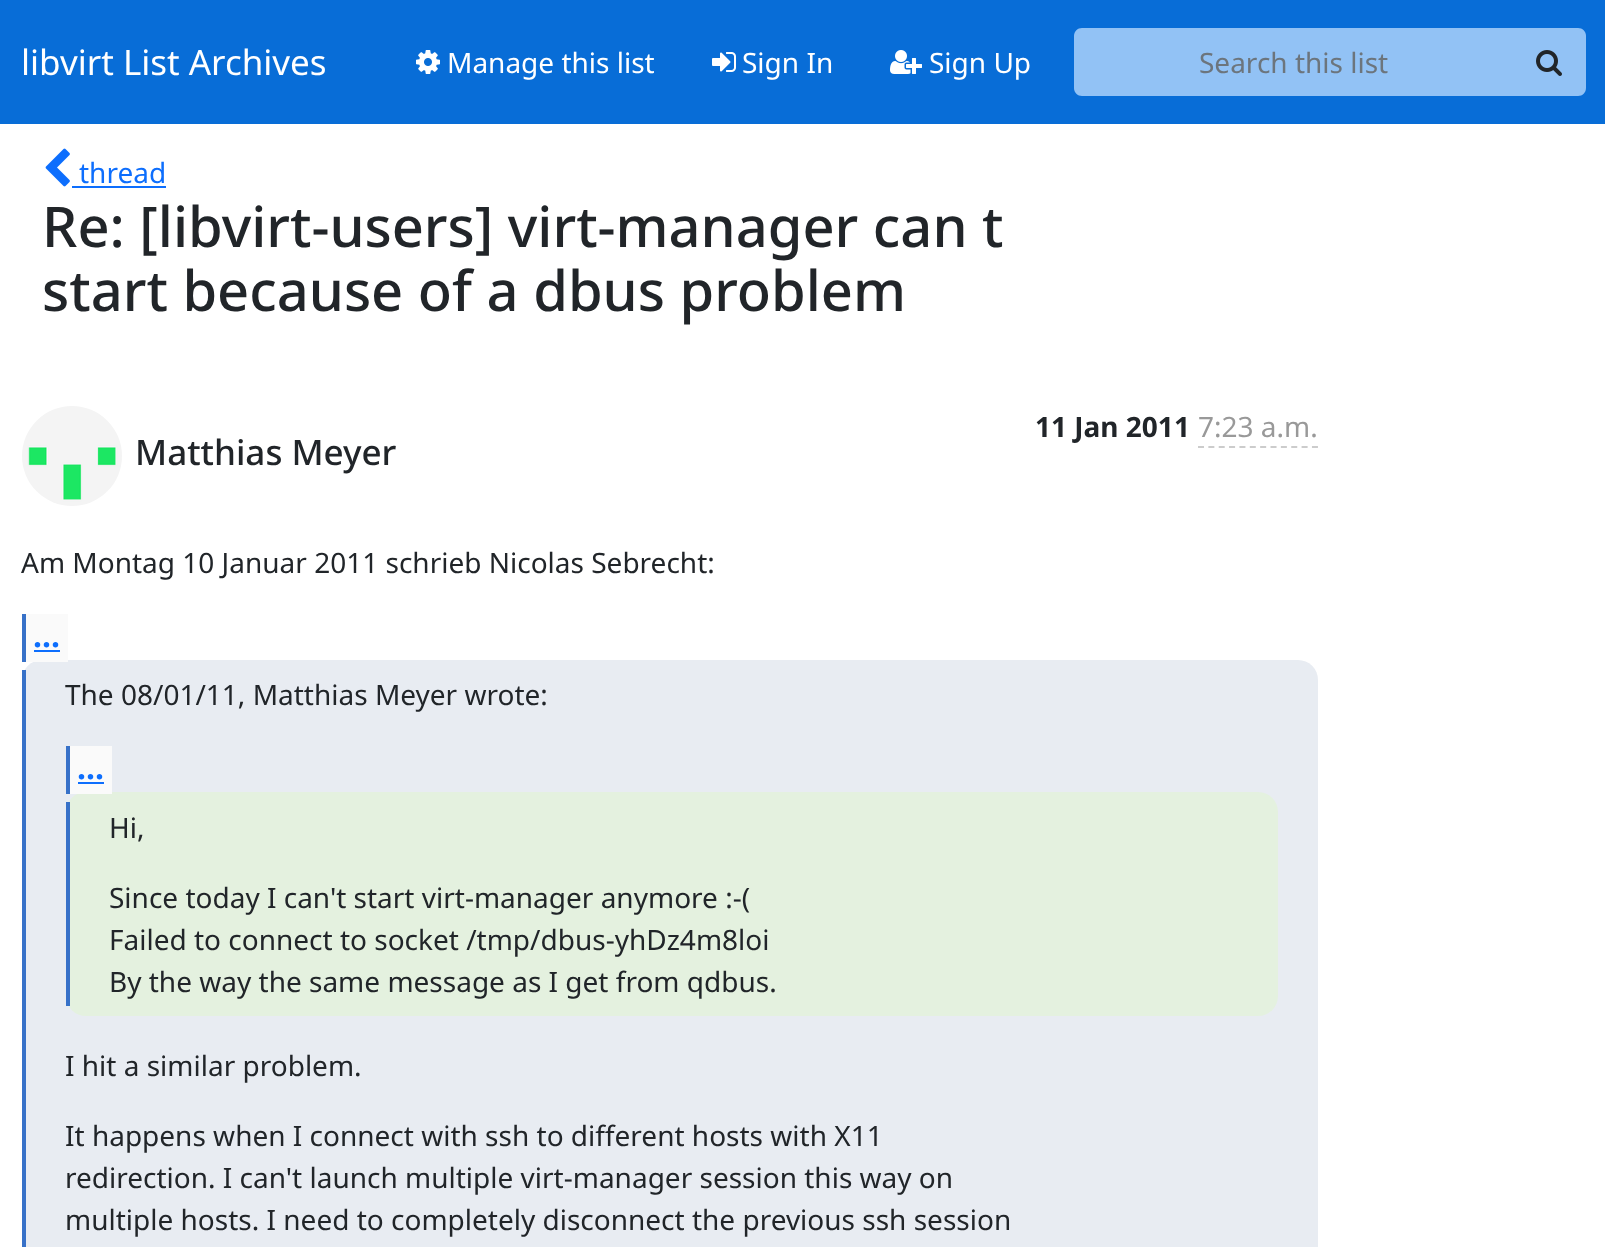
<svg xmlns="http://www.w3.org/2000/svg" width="1605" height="1247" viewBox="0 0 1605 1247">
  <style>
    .t1 { font: 35px Noto Sans; fill: #fff; }
    .t2 { font: 28px Noto Sans; fill: #fff; }
    .t3 { font: 28px Noto Sans; fill: #6c757d; }
    .t4 { font: 28px Noto Sans; fill: #0d6efd; }
    .t5 { font: 500 56px Noto Sans; fill: #212529; }
    .t6 { font: bold 28px Noto Sans; fill: #212529; }
    .t7 { font: 28px Noto Sans; fill: #999; }
    .t8 { font: 500 35px Noto Sans; fill: #212529; }
    .t9 { font: 28px Noto Sans; fill: #212529; }
    .t10 { font: bold 32px Noto Sans; fill: #0d6efd; }
  </style>
  <rect width="100%" height="100%" fill="#fff"/>
  <rect x="0" y="0" width="1605" height="124" fill="#086dd7"/>
  <text x="21" y="75" class="t1">libvirt List Archives</text>
  <image x="416" y="50" width="24" height="24" href="images/1.png"/>
  <text x="447" y="73" class="t2">Manage this list</text>
  <image x="712" y="52" width="24" height="20" href="images/2.png"/>
  <text x="742" y="73" class="t2">Sign In</text>
  <image x="890" y="50" width="32" height="24" href="images/3.png"/>
  <text x="929" y="73" class="t2">Sign Up</text>
  <path d="M1082 28H1516V96H1082C1077.5 96 1074 92.5 1074 88V36C1074 31.5 1077.5 28 1082 28Z" fill="#92c2f5"/>
  <text x="1199" y="73" class="t3">Search this list</text>
  <path d="M1514 28H1578C1582.5 28 1586 31.5 1586 36V88C1586 92.5 1582.5 96 1578 96H1514Z" fill="#92c2f5"/>
  <image x="1536" y="50" width="26" height="26" href="images/4.png"/>
  <image x="45" y="148" width="25" height="39" href="images/5.png"/>
  <text x="79" y="183" class="t4">thread</text>
  <rect x="72" y="186" width="94" height="2" fill="#0d6efd"/>
  <text x="42" y="247" class="t5">Re: [libvirt-users] virt-manager can t</text>
  <text x="42" y="311" class="t5">start because of a dbus problem</text>
  <text x="1035" y="437" class="t6">11 Jan 2011</text>
  <text x="1198" y="437" class="t7">7:23 a.m.</text>
  <path d="M1198 447H1318" fill="none" stroke="#ccc" stroke-width="2" stroke-dasharray="6 4.36"/>
  <image x="22" y="406" width="100" height="100" href="images/6.png"/>
  <text x="135" y="465" class="t8">Matthias Meyer</text>
  <text x="21" y="573" class="t9">Am Montag 10 Januar 2011 schrieb Nicolas Sebrecht:</text>
  <rect x="22" y="660" width="1296" height="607" rx="20" fill="#e8ecf2"/>
  <rect x="26" y="614" width="42" height="48" fill="#fafafa"/>
  <text x="33" y="647" class="t10">...</text>
  <rect x="22" y="614" width="4" height="48" fill="#3771c8"/>
  <rect x="34" y="650" width="26" height="2" fill="#0d6efd"/>
  <rect x="22" y="670" width="4" height="577" fill="#3771c8"/>
  <text x="65" y="705" class="t9">The 08/01/11, Matthias Meyer wrote:</text>
  <rect x="66" y="792" width="1212" height="224" rx="20" fill="#e4f1df"/>
  <rect x="70" y="746" width="42" height="48" fill="#fafafa"/>
  <text x="77" y="779" class="t10">...</text>
  <rect x="66" y="746" width="4" height="48" fill="#3771c8"/>
  <rect x="78" y="782" width="26" height="2" fill="#0d6efd"/>
  <rect x="66" y="802" width="4" height="204" fill="#3771c8"/>
  <text x="109" y="838" class="t9">Hi,</text>
  <text x="109" y="908" class="t9">Since today I can't start virt-manager anymore :-(</text>
  <text x="109" y="950" class="t9">Failed to connect to socket /tmp/dbus-yhDz4m8loi</text>
  <text x="109" y="992" class="t9">By the way the same message as I get from qdbus.</text>
  <text x="65" y="1076" class="t9">I hit a similar problem.</text>
  <text x="65" y="1146" class="t9">It happens when I connect with ssh to different hosts with X11</text>
  <text x="65" y="1188" class="t9">redirection. I can't launch multiple virt-manager session this way on</text>
  <text x="65" y="1230" class="t9">multiple hosts. I need to completely disconnect the previous ssh session</text>
</svg>
